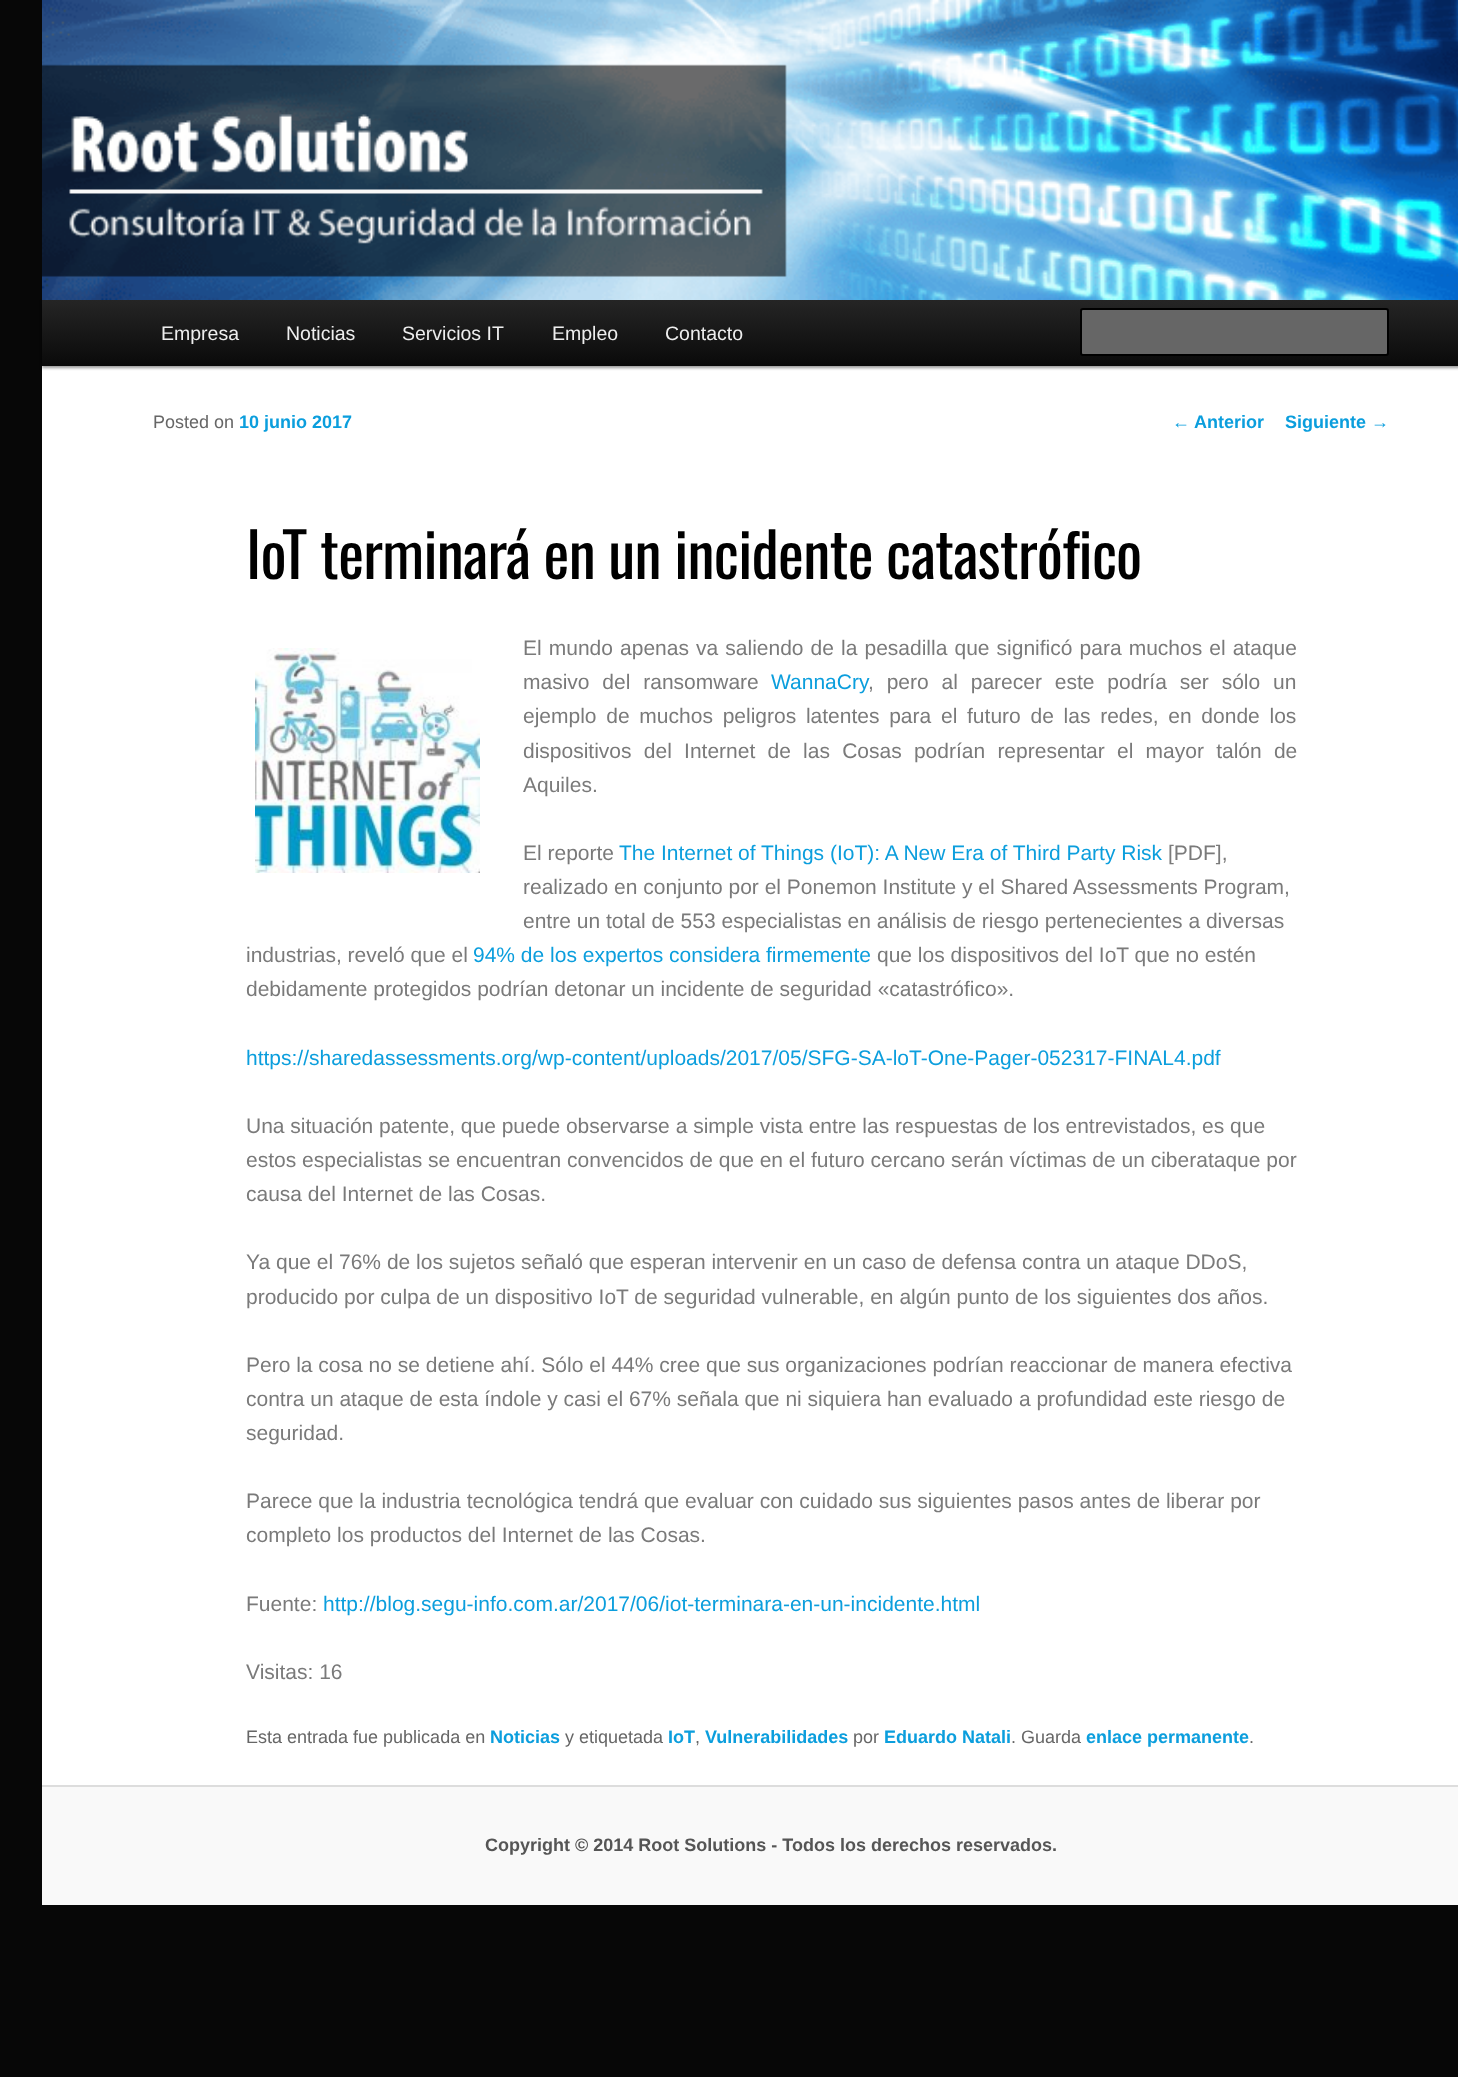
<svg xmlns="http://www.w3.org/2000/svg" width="1458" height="2077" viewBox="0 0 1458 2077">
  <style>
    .t1 { font: 19.5px Liberation Sans; fill: #eee; }
    .t2 { font: 18px Liberation Sans; fill: #666; }
    .t3 { font: bold 18px Liberation Sans; fill: #0b9edd; }
    .t4 { font: 61.5px Oswald; letter-spacing: -0.75px; fill: #000; }
    .t5 { font: 21px Liberation Sans; fill: #7a7a7a; }
    .t6 { font: 21px Liberation Sans; fill: #0b9edd; }
    .t7 { font: 18px Liberation Sans; fill: #0b9edd; }
    .t8 { font: bold 18px Liberation Sans; fill: #555; }
  </style>
  <defs>
    <linearGradient id="g1" gradientUnits="userSpaceOnUse" x1="771" y1="300" x2="771" y2="366"><stop offset="0" stop-color="#252525"/><stop offset="1" stop-color="#0a0a0a"/></linearGradient>
  </defs>
  <rect width="100%" height="100%" fill="#070707"/>
  <rect x="42" y="366" width="1416" height="1419" fill="#fff"/>
  <rect x="42" y="302" width="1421" height="66" fill="#00000066" filter="blur(1.5px)"/>
  <image x="42" y="0" width="1416" height="300" href="images/1.png"/>
  <rect x="42" y="300" width="1416" height="66" fill="url(#g1)"/>
  <text x="161" y="340" class="t1">Empresa</text>
  <text x="286" y="340" class="t1">Noticias</text>
  <text x="402" y="340" class="t1">Servicios IT</text>
  <text x="552" y="340" class="t1">Empleo</text>
  <text x="665" y="340" class="t1">Contacto</text>
  <rect x="1081" y="309" width="307" height="46" rx="2" fill="#666" stroke="#000" stroke-width="2"/>
  <text x="153" y="428" class="t2">Posted on</text>
  <text x="239" y="428" class="t3">10 junio 2017</text>
  <text x="246" y="579" class="t4">IoT terminará en un incidente catastrófico</text>
  <image x="255" y="648" width="225" height="225" href="images/2.png"/>
  <text x="523" y="655" word-spacing="1.25" class="t5">El mundo apenas va saliendo de la pesadilla que significó para muchos el ataque</text>
  <text x="523" y="689" word-spacing="7" class="t5">masivo del ransomware</text>
  <text x="771" y="689" class="t6">WannaCry</text>
  <text x="868" y="689" word-spacing="7" class="t5">, pero al parecer este podría ser sólo un</text>
  <text x="523" y="723" word-spacing="3.9" class="t5">ejemplo de muchos peligros latentes para el futuro de las redes, en donde los</text>
  <text x="523" y="758" word-spacing="6.4" class="t5">dispositivos del Internet de las Cosas podrían representar el mayor talón de</text>
  <text x="523" y="792" class="t5">Aquiles.</text>
  <text x="523" y="860" class="t5">El reporte</text>
  <text x="619" y="860" class="t6">The Internet of Things (IoT): A New Era of Third Party Risk</text>
  <text x="1168" y="860" class="t5">[PDF],</text>
  <text x="523" y="894" class="t5">realizado en conjunto por el Ponemon Institute y el Shared Assessments Program,</text>
  <text x="523" y="928" class="t5">entre un total de 553 especialistas en análisis de riesgo pertenecientes a diversas</text>
  <text x="246" y="962" class="t5">industrias, reveló que el</text>
  <text x="473" y="962" class="t6">94% de los expertos considera firmemente</text>
  <text x="877" y="962" class="t5">que los dispositivos del IoT que no estén</text>
  <text x="246" y="996" class="t5">debidamente protegidos podrían detonar un incidente de seguridad «catastrófico».</text>
  <text x="246" y="1065" class="t6">https://sharedassessments.org/wp-content/uploads/2017/05/SFG-SA-loT-One-Pager-052317-FINAL4.pdf</text>
  <text x="246" y="1133" class="t5">Una situación patente, que puede observarse a simple vista entre las respuestas de los entrevistados, es que</text>
  <text x="246" y="1167" class="t5">estos especialistas se encuentran convencidos de que en el futuro cercano serán víctimas de un ciberataque por</text>
  <text x="246" y="1201" class="t5">causa del Internet de las Cosas.</text>
  <text x="246" y="1269" class="t5">Ya que el 76% de los sujetos señaló que esperan intervenir en un caso de defensa contra un ataque DDoS,</text>
  <text x="246" y="1304" class="t5">producido por culpa de un dispositivo IoT de seguridad vulnerable, en algún punto de los siguientes dos años.</text>
  <text x="246" y="1372" class="t5">Pero la cosa no se detiene ahí. Sólo el 44% cree que sus organizaciones podrían reaccionar de manera efectiva</text>
  <text x="246" y="1406" class="t5">contra un ataque de esta índole y casi el 67% señala que ni siquiera han evaluado a profundidad este riesgo de</text>
  <text x="246" y="1440" class="t5">seguridad.</text>
  <text x="246" y="1508" class="t5">Parece que la industria tecnológica tendrá que evaluar con cuidado sus siguientes pasos antes de liberar por</text>
  <text x="246" y="1542" class="t5">completo los productos del Internet de las Cosas.</text>
  <text x="246" y="1611" class="t5">Fuente:</text>
  <text x="323" y="1611" class="t6">http://blog.segu-info.com.ar/2017/06/iot-terminara-en-un-incidente.html</text>
  <text x="246" y="1679" class="t5">Visitas: 16</text>
  <text x="246" y="1743" class="t2">Esta entrada fue publicada en</text>
  <text x="490" y="1743" class="t3">Noticias</text>
  <text x="565" y="1743" class="t2">y etiquetada</text>
  <text x="668" y="1743" class="t3">IoT</text>
  <text x="695" y="1743" class="t2">,</text>
  <text x="705" y="1743" class="t3">Vulnerabilidades</text>
  <text x="853" y="1743" class="t2">por</text>
  <text x="884" y="1743" class="t3">Eduardo Natali</text>
  <text x="1011" y="1743" class="t2">. Guarda</text>
  <text x="1086" y="1743" class="t3">enlace permanente</text>
  <text x="1249" y="1743" class="t2">.</text>
  <text x="1172" y="428" class="t7">←</text>
  <text x="1194" y="428" class="t3">Anterior</text>
  <text x="1285" y="428" class="t3">Siguiente</text>
  <text x="1371" y="428" class="t7">→</text>
  <rect x="42" y="1787" width="1416" height="118" fill="#f9f9f9"/>
  <rect x="42" y="1785" width="1416" height="2" fill="#ddd"/>
  <text x="485" y="1851" class="t8">Copyright © 2014 Root Solutions - Todos los derechos reservados.</text>
</svg>
